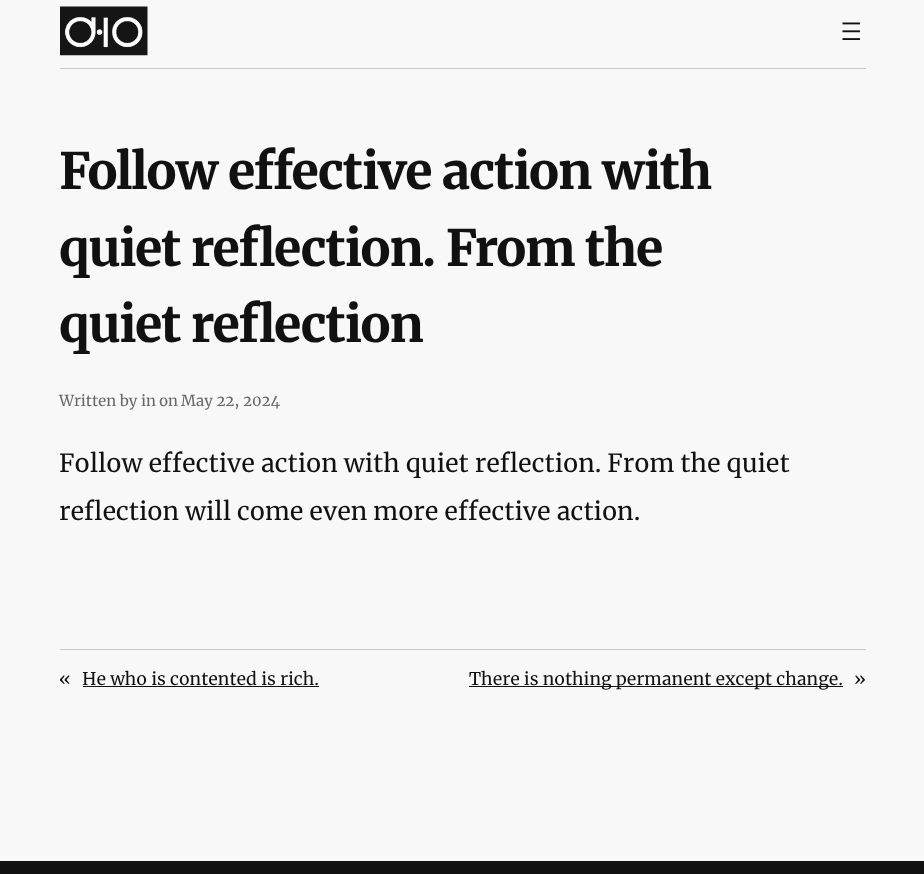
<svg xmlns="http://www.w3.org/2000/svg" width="924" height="874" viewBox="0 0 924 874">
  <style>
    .t1 { font: 800 50px Merriweather; letter-spacing: -1.2px; fill: #111; }
    .t2 { font: 15px Merriweather; fill: #686868; }
    .t3 { font: 25px Merriweather; fill: #111; }
    .t4 { font: 17.5px Merriweather; fill: #111; }
  </style>
  <rect width="100%" height="100%" fill="#f8f8f8"/>
  <rect x="60" y="68" width="806" height="1" fill="#cacaca"/>
  <image x="60" y="6" width="88" height="50" href="images/1.png"/>
  <image x="842" y="22" width="18" height="18" href="images/2.png"/>
  <text x="59" y="189" class="t1">Follow effective action with</text>
  <text x="59" y="266" class="t1">quiet reflection. From the</text>
  <text x="59" y="342" class="t1">quiet reflection</text>
  <text x="59" y="406" class="t2">Written by</text>
  <text x="141" y="406" class="t2">in</text>
  <text x="159" y="406" class="t2">on</text>
  <text x="181" y="406" class="t2">May 22, 2024</text>
  <text x="59" y="472" class="t3">Follow effective action with quiet reflection. From the quiet</text>
  <text x="59" y="520" class="t3">reflection will come even more effective action.</text>
  <rect x="60" y="649" width="806" height="1" fill="#cacaca"/>
  <text x="59" y="685" class="t4">«</text>
  <text x="82" y="685" class="t4">He who is contented is rich.</text>
  <rect x="83" y="686" width="236" height="1" fill="#111"/>
  <rect x="469" y="686" width="374" height="1" fill="#111"/>
  <text x="469" y="685" class="t4">There is nothing permanent except change.</text>
  <text x="854" y="685" class="t4">»</text>
  <rect x="0" y="861" width="924" height="13" fill="#111"/>
</svg>
